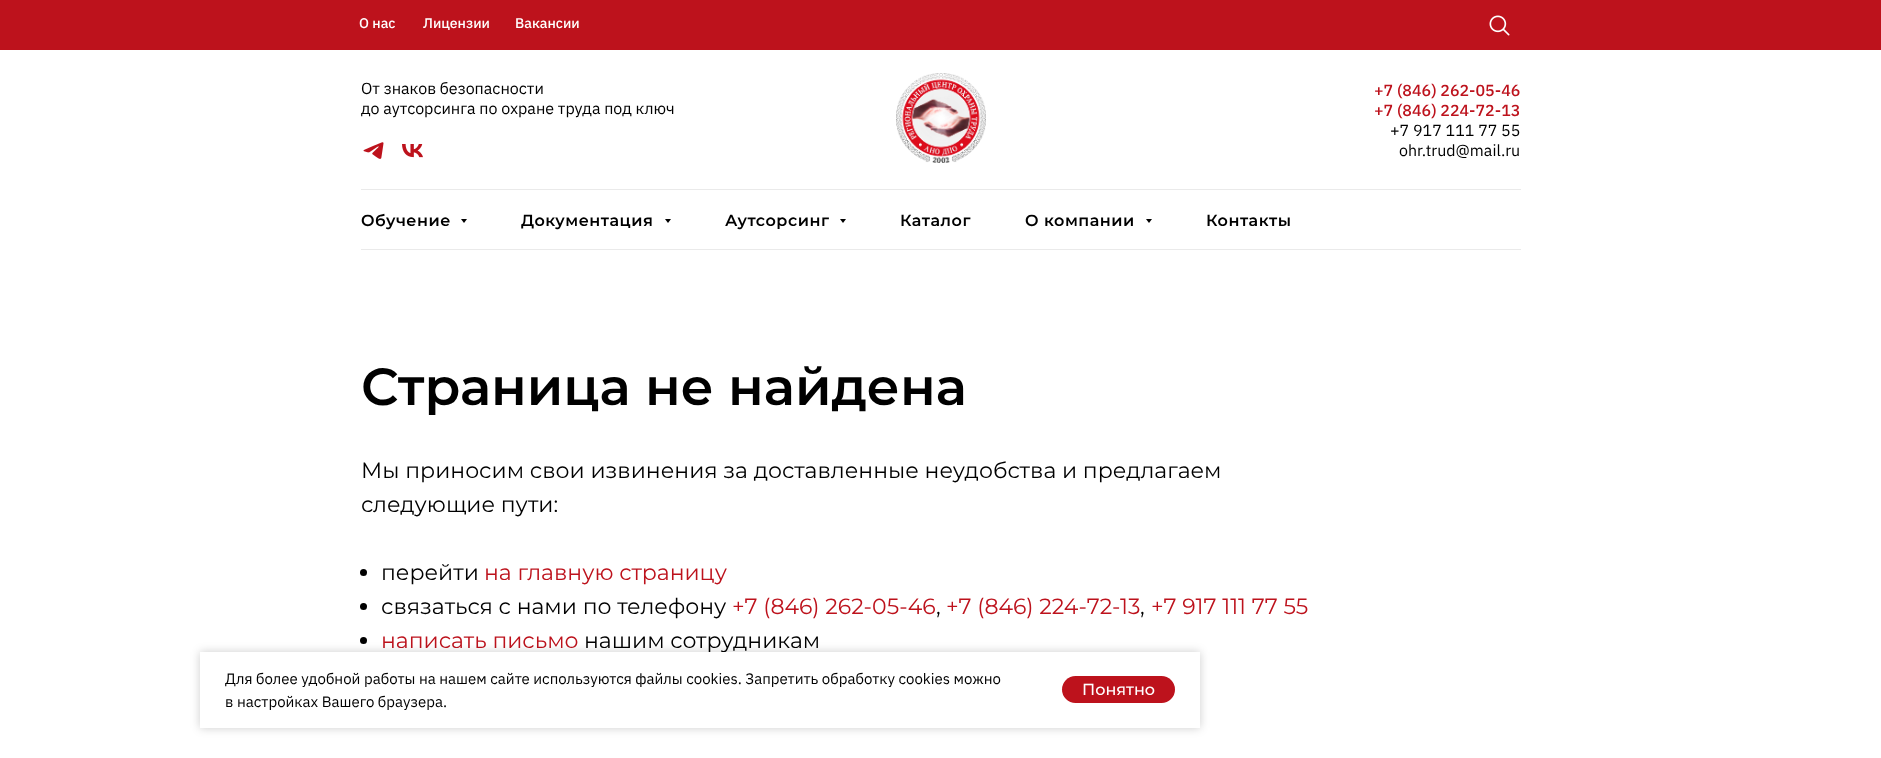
<svg xmlns="http://www.w3.org/2000/svg" width="1881" height="758" viewBox="0 0 1881 758">
  <style>
    .t1 { font: 500 14px IBM Plex Sans; fill: #fff; }
    .t2 { font: 16px IBM Plex Sans; fill: #000; }
    .t3 { font: 500 16px IBM Plex Sans; fill: #bd121c; }
    .t4 { font: 600 16px Montserrat; letter-spacing: 0.5px; fill: #000; }
    .t5 { font: 600 52px Montserrat; fill: #000; }
    .t6 { font: 22px Montserrat; fill: #000; }
    .t7 { font: 22px Montserrat; fill: #bd121c; }
    .t8 { font: 15px IBM Plex Sans; fill: #000; }
    .t9 { font: 500 16px Montserrat; fill: #fff; }
  </style>
  <rect width="100%" height="100%" fill="#fff"/>
  <rect x="0" y="0" width="1881" height="50" fill="#bd121c"/>
  <text x="359" y="28" class="t1">О нас</text>
  <text x="423" y="28" class="t1">Лицензии</text>
  <text x="515" y="28" class="t1">Вакансии</text>
  <image x="1489" y="15" width="21" height="21" href="images/1.png"/>
  <image x="896" y="73" width="90" height="90" href="images/2.png"/>
  <text x="361" y="94" class="t2">От знаков безопасности</text>
  <text x="361" y="114" class="t2">до аутсорсинга по охране труда под ключ</text>
  <image x="363" y="142" width="21" height="17" href="images/3.png"/>
  <image x="402" y="144" width="21" height="14" href="images/4.png"/>
  <text x="1374" y="96" class="t3">+7 (846) 262-05-46</text>
  <text x="1374" y="116" class="t3">+7 (846) 224-72-13</text>
  <text x="1390" y="136" class="t2">+7 917 111 77 55</text>
  <text x="1399" y="156" class="t2">ohr.trud@mail.ru</text>
  <rect x="361" y="189" width="1160" height="1" fill="#eaeaea"/>
  <text x="361" y="226" class="t4">Обучение</text>
  <path d="M461 219H467L464 223Z" fill="#000"/>
  <text x="521" y="226" class="t4">Документация</text>
  <path d="M665 219H671L668 223Z" fill="#000"/>
  <text x="725" y="226" class="t4">Аутсорсинг</text>
  <path d="M840 219H846L843 223Z" fill="#000"/>
  <text x="900" y="226" class="t4">Каталог</text>
  <text x="1025" y="226" class="t4">О компании</text>
  <path d="M1146 219H1152L1149 223Z" fill="#000"/>
  <text x="1206" y="226" class="t4">Контакты</text>
  <rect x="361" y="249" width="1160" height="1" fill="#eaeaea"/>
  <text x="361" y="405" class="t5">Страница не найдена</text>
  <text x="361" y="478" class="t6">Мы приносим свои извинения за доставленные неудобства и предлагаем</text>
  <text x="361" y="512" class="t6">следующие пути:</text>
  <circle cx="363.5" cy="572.5" r="3.5" fill="#000"/>
  <text x="381" y="580" class="t6">перейти</text>
  <text x="484" y="580" class="t7">на главную страницу</text>
  <circle cx="363.5" cy="606.5" r="3.5" fill="#000"/>
  <text x="381" y="614" class="t6">связаться с нами по телефону</text>
  <text x="732" y="614" class="t7">+7 (846) 262-05-46</text>
  <text x="946" y="614" class="t7">+7 (846) 224-72-13</text>
  <text x="1151" y="614" class="t7">+7 917 111 77 55</text>
  <text x="936" y="614" class="t6">,</text>
  <text x="1140" y="614" class="t6">,</text>
  <circle cx="363.5" cy="640.5" r="3.5" fill="#000"/>
  <text x="381" y="648" class="t7">написать письмо</text>
  <text x="584" y="648" class="t6">нашим сотрудникам</text>
  <rect x="200" y="652" width="1000" height="76" fill="#00000033" filter="blur(5px)"/>
  <rect x="200" y="652" width="1000" height="76" fill="#fff"/>
  <text x="225" y="684" class="t8">Для более удобной работы на нашем сайте используются файлы сookies. Запретить обработку cookies можно</text>
  <text x="225" y="707" class="t8">в настройках Вашего браузера.</text>
  <rect x="1062" y="676" width="113" height="27" rx="13.5" fill="#bd121c"/>
  <text x="1082" y="695" class="t9">Понятно</text>
</svg>
